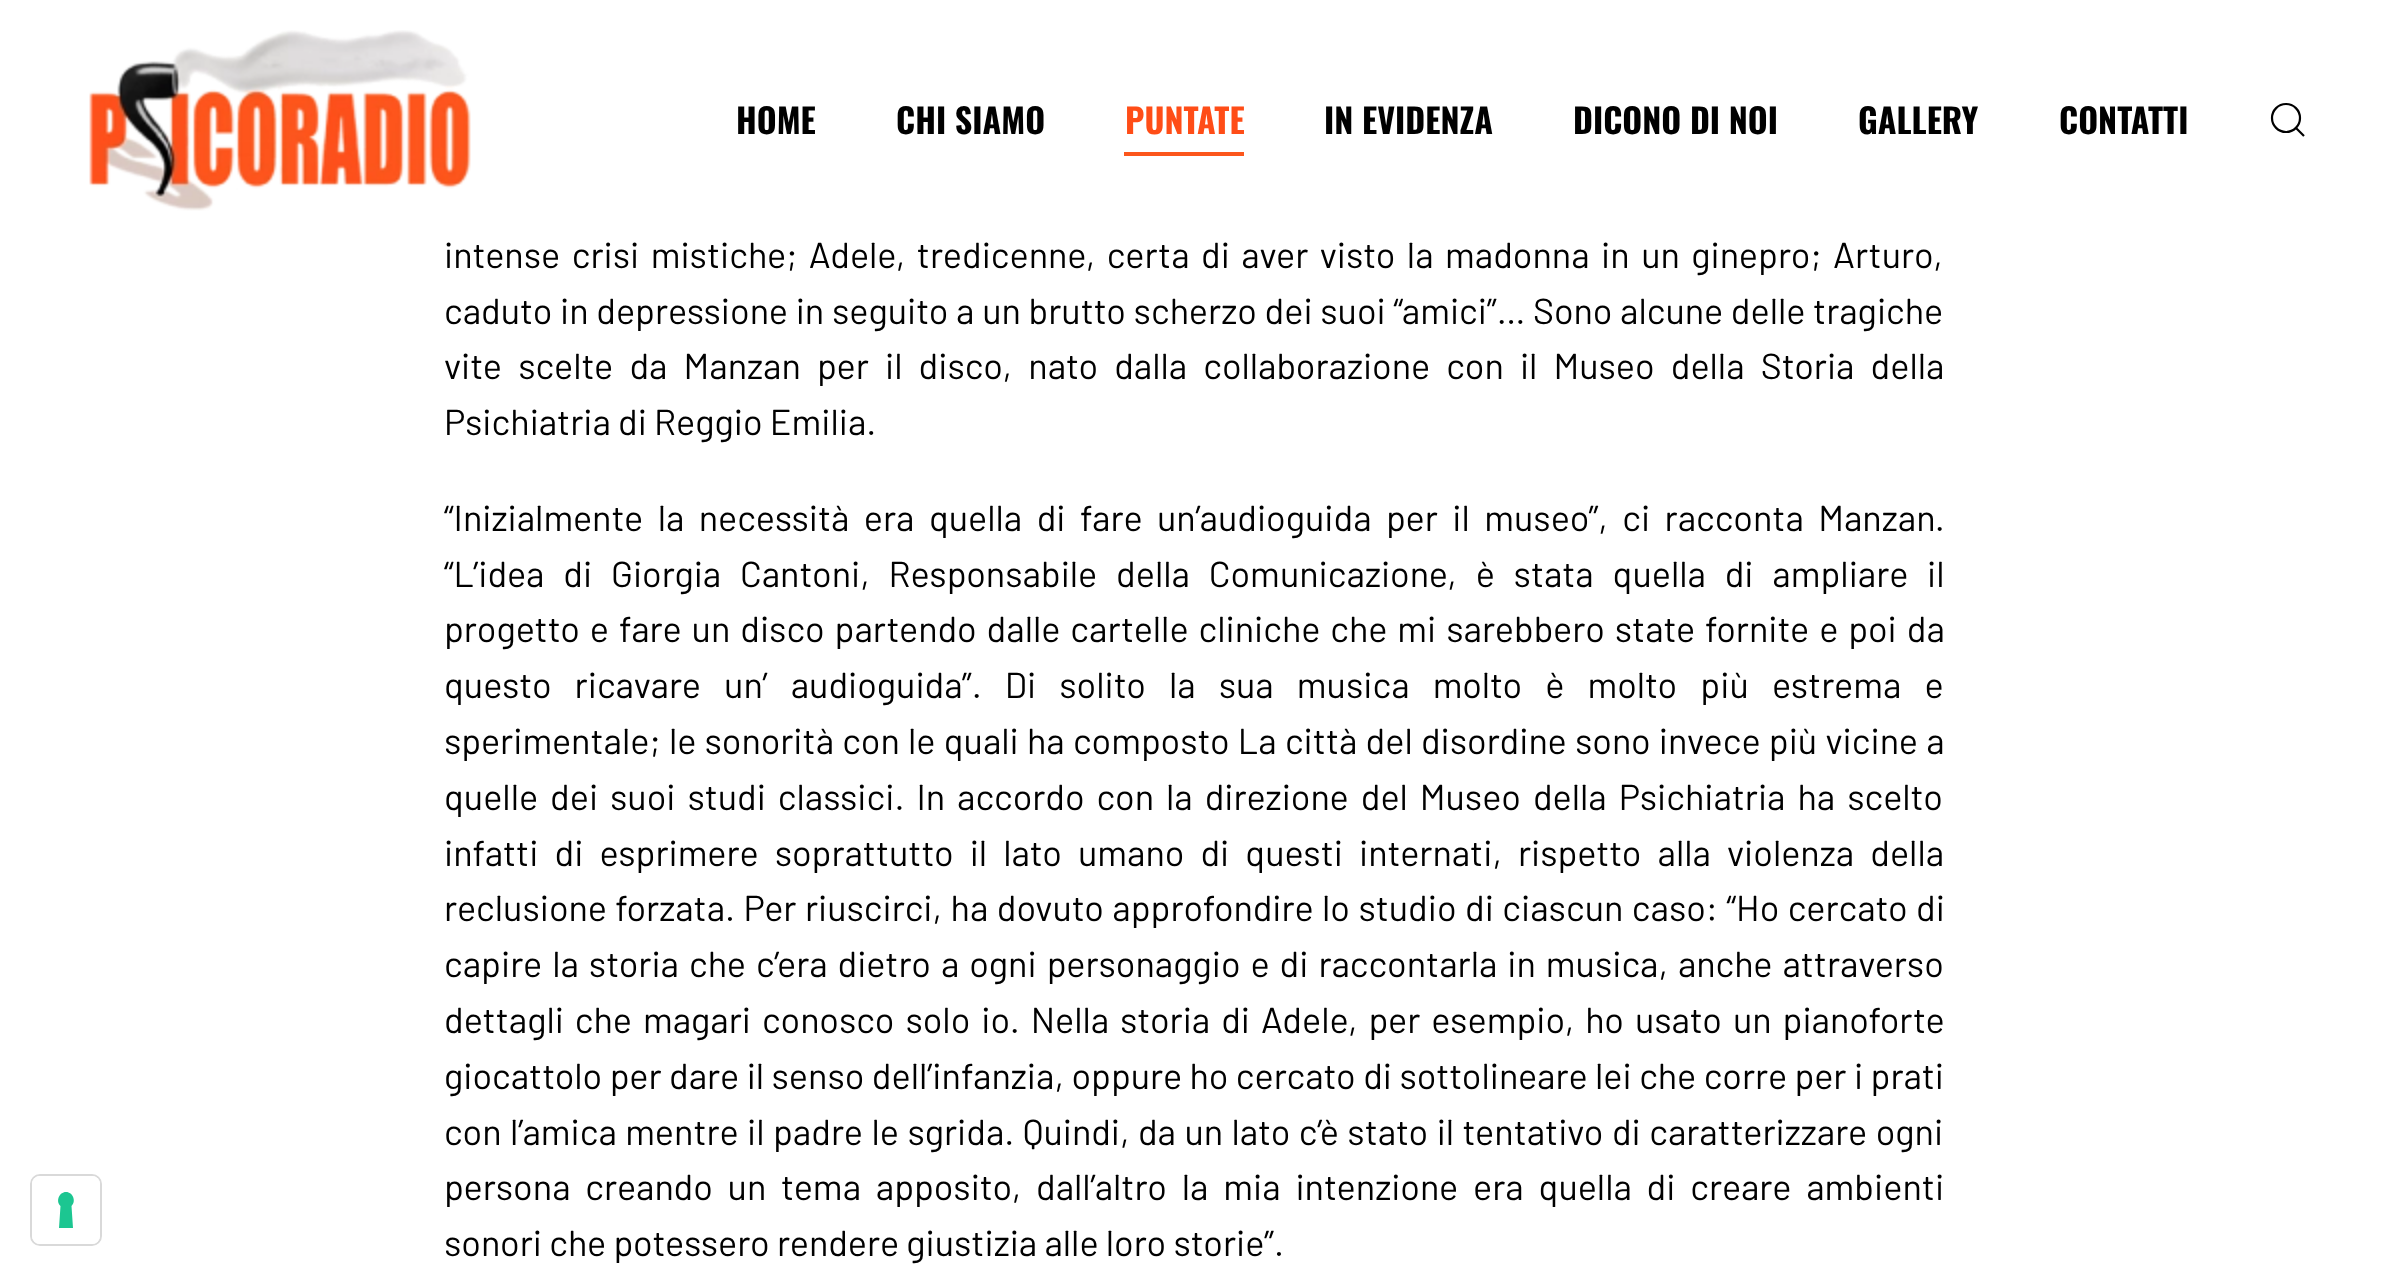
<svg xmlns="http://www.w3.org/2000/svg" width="2388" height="1275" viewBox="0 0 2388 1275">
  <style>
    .t1 { font: bold 34px Oswald; fill: #000; }
    .t2 { font: bold 34px Oswald; fill: #ff4d17; }
    .t3 { font: 36px Barlow; fill: #000; }
  </style>
  <rect width="100%" height="100%" fill="#fff"/>
  <rect x="31" y="1175" width="70" height="70" rx="9" fill="none" stroke="#d9d9d9" stroke-width="2"/>
  <rect x="32" y="1176" width="68" height="68" rx="8" fill="#fff"/>
  <path d="M66 1192C73 1192 76.5 1201.5 71.5 1206L73 1228H59L60.5 1206C55.5 1201.5 59 1192 66 1192Z" fill="#1cc691" fill-rule="evenodd"/>
  <image x="89" y="30" width="382" height="181" href="images/1.png"/>
  <text x="736" y="134" class="t1">HOME</text>
  <text x="896" y="134" class="t1">CHI SIAMO</text>
  <text x="1125" y="134" class="t2">PUNTATE</text>
  <rect x="1124" y="152" width="120" height="4" fill="#fc561c"/>
  <text x="1324" y="134" class="t1">IN EVIDENZA</text>
  <text x="1573" y="134" class="t1">DICONO DI NOI</text>
  <text x="1858" y="134" class="t1">GALLERY</text>
  <text x="2059" y="134" class="t1">CONTATTI</text>
  <circle cx="2286" cy="118" r="14" fill="none" stroke="#000" stroke-width="2.2"/>
  <path d="M2296 128L2304 136Z" fill="none" stroke="#000" stroke-width="2.2"/>
  <text x="444" y="268" word-spacing="4.25" class="t3">intense crisi mistiche; Adele, tredicenne, certa di aver visto la madonna in un ginepro; Arturo,</text>
  <text x="444" y="324" word-spacing="0.5" class="t3">caduto in depressione in seguito a un brutto scherzo dei suoi “amici”… Sono alcune delle tragiche</text>
  <text x="444" y="379" word-spacing="8.9" class="t3">vite scelte da Manzan per il disco, nato dalla collaborazione con il Museo della Storia della</text>
  <text x="444" y="435" class="t3">Psichiatria di Reggio Emilia.</text>
  <text x="444" y="531" word-spacing="7.25" class="t3">“Inizialmente la necessità era quella di fare un’audioguida per il museo”, ci racconta Manzan.</text>
  <text x="444" y="587" word-spacing="11.6" class="t3">“L’idea di Giorgia Cantoni, Responsabile della Comunicazione, è stata quella di ampliare il</text>
  <text x="444" y="642" word-spacing="2.75" class="t3">progetto e fare un disco partendo dalle cartelle cliniche che mi sarebbero state fornite e poi da</text>
  <text x="444" y="698" word-spacing="15.9" class="t3">questo ricavare un’ audioguida”. Di solito la sua musica molto è molto più estrema e</text>
  <text x="444" y="754" word-spacing="1" class="t3">sperimentale; le sonorità con le quali ha composto La città del disordine sono invece più vicine a</text>
  <text x="444" y="810" word-spacing="4.75" class="t3">quelle dei suoi studi classici. In accordo con la direzione del Museo della Psichiatria ha scelto</text>
  <text x="444" y="866" word-spacing="8.9" class="t3">infatti di esprimere soprattutto il lato umano di questi internati, rispetto alla violenza della</text>
  <text x="444" y="921" word-spacing="1.25" class="t3">reclusione forzata. Per riuscirci, ha dovuto approfondire lo studio di ciascun caso: “Ho cercato di</text>
  <text x="444" y="977" word-spacing="2.75" class="t3">capire la storia che c’era dietro a ogni personaggio e di raccontarla in musica, anche attraverso</text>
  <text x="444" y="1033" word-spacing="3.75" class="t3">dettagli che magari conosco solo io. Nella storia di Adele, per esempio, ho usato un pianoforte</text>
  <text x="444" y="1089" word-spacing="0.25" class="t3">giocattolo per dare il senso dell’infanzia, oppure ho cercato di sottolineare lei che corre per i prati</text>
  <text x="444" y="1145" word-spacing="1.25" class="t3">con l’amica mentre il padre le sgrida. Quindi, da un lato c’è stato il tentativo di caratterizzare ogni</text>
  <text x="444" y="1200" word-spacing="7.6" class="t3">persona creando un tema apposito, dall’altro la mia intenzione era quella di creare ambienti</text>
  <text x="444" y="1256" class="t3">sonori che potessero rendere giustizia alle loro storie”.</text>
</svg>
